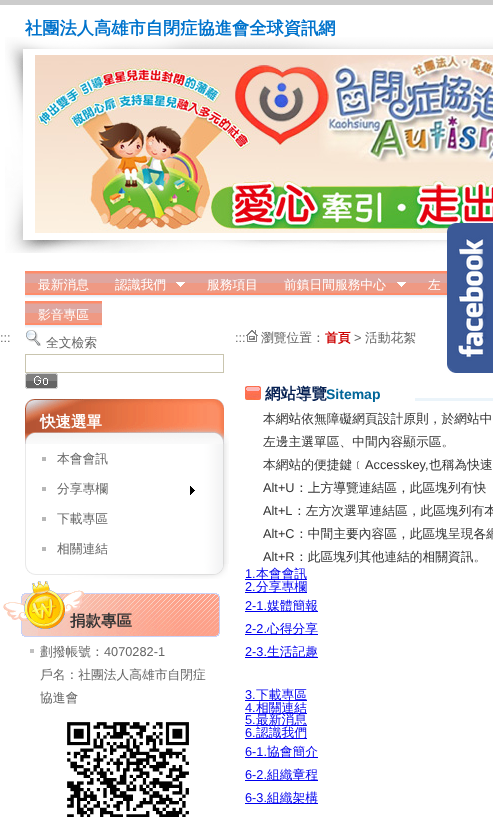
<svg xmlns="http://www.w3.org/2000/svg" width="493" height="817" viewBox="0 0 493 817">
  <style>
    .t1 { font: bold 17.25px WenQuanYi Zen Hei; fill: #0073cc; }
    .t2 { font: 500 12.75px WenQuanYi Zen Hei; fill: #fff; }
    .t3 { font: 12.75px Liberation Sans; fill: #666; }
    .t4 { font: 500 12.75px WenQuanYi Zen Hei; fill: #666; }
    .t5 { font: bold 15.5px WenQuanYi Zen Hei; fill: #fff; }
    .t6 { font: bold 15.5px WenQuanYi Zen Hei; fill: #333; }
    .t7 { font: bold 12.75px WenQuanYi Zen Hei; fill: #c00; }
    .t8 { font: bold 15.5px WenQuanYi Zen Hei; fill: #041f51; }
    .t9 { font: bold 14px Liberation Sans; fill: #069; }
    .t10 { font: 500 12.75px WenQuanYi Zen Hei; fill: #333; }
    .t11 { font: 12.75px Liberation Sans; fill: #333; }
    .t12 { font: 12.75px Liberation Sans; fill: #00e; }
    .t13 { font: 500 12.75px WenQuanYi Zen Hei; fill: #00e; }
  </style>
  <rect width="100%" height="100%" fill="#fff"/>
  <rect x="0" y="0" width="493" height="5" fill="#ccc"/>
  <text x="25" y="34" class="t1">社團法人高雄市自閉症協進會全球資訊網</text>
  <image x="5" y="37" width="488" height="216" href="images/1.png"/>
  <image x="35" y="55" width="458" height="178" href="images/2.png"/>
  <image x="25" y="271" width="422" height="27" href="images/3.png"/>
  <text x="38" y="289" class="t2">最新消息</text>
  <text x="115" y="289" class="t2">認識我們</text>
  <image x="176" y="282" width="9" height="5" href="images/4.png"/>
  <text x="207" y="289" class="t2">服務項目</text>
  <text x="284" y="289" class="t2">前鎮日間服務中心</text>
  <image x="397" y="282" width="9" height="5" href="images/4.png"/>
  <text x="428" y="289" class="t2">左</text>
  <image x="25" y="301" width="77" height="27" href="images/5.png"/>
  <text x="38" y="319" class="t2">影音專區</text>
  <text x="0" y="342" class="t3">:::</text>
  <image x="26" y="330" width="15" height="16" href="images/6.png"/>
  <text x="46" y="347" class="t4">全文檢索</text>
  <rect x="25.5" y="354.5" width="198" height="18" fill="none" stroke="#c9c5af"/>
  <image x="25" y="373" width="33" height="16" href="images/7.png"/>
  <image x="25" y="399" width="204" height="45" href="images/8.png"/>
  <text x="40" y="427" class="t5">快速選單</text>
  <image x="25" y="564" width="203" height="15" href="images/9.png"/>
  <image x="25" y="444" width="204" height="30" href="images/10.png"/>
  <rect x="42" y="457" width="4" height="4" fill="#b7b7b7"/>
  <text x="57" y="463" class="t4">本會會訊</text>
  <image x="25" y="474" width="204" height="30" href="images/10.png"/>
  <rect x="42" y="487" width="4" height="4" fill="#b7b7b7"/>
  <text x="57" y="493" class="t4">分享專欄</text>
  <image x="190" y="486" width="5" height="9" href="images/11.png"/>
  <image x="25" y="504" width="204" height="30" href="images/10.png"/>
  <rect x="42" y="517" width="4" height="4" fill="#b7b7b7"/>
  <text x="57" y="523" class="t4">下載專區</text>
  <image x="25" y="534" width="204" height="30" href="images/10.png"/>
  <rect x="42" y="547" width="4" height="4" fill="#b7b7b7"/>
  <text x="57" y="553" class="t4">相關連結</text>
  <image x="3" y="581" width="217" height="56" href="images/12.png"/>
  <text x="70" y="626" class="t6">捐款專區</text>
  <rect x="30" y="649" width="4" height="4" fill="#c0c0c0"/>
  <text x="40" y="656" class="t4">劃撥帳號：</text>
  <text x="104" y="656" class="t3">4070282-1</text>
  <text x="40" y="679" class="t4">戶名：社團法人高雄市自閉症</text>
  <text x="40" y="702" class="t4">協進會</text>
  <image x="67" y="722" width="122" height="95" href="images/13.png"/>
  <text x="235" y="342" class="t3">:::</text>
  <image x="246" y="330" width="12" height="12" href="images/14.png"/>
  <text x="261" y="342" class="t4">瀏覽位置：</text>
  <text x="325" y="342" class="t7">首頁</text>
  <text x="354" y="342" class="t3">&gt;</text>
  <text x="365" y="342" class="t4">活動花絮</text>
  <image x="245" y="386" width="16" height="14" href="images/15.png"/>
  <text x="265" y="399" class="t8">網站導覽</text>
  <text x="326" y="399" class="t9">Sitemap</text>
  <rect x="415" y="398" width="78" height="3" fill="#ebf4fa"/>
  <text x="263" y="423" class="t10">本網站依無障礙網頁設計原則，於網站中</text>
  <text x="263" y="446" class="t10">左邊主選單區、中間內容顯示區。</text>
  <text x="263" y="469" class="t10">本網站的便捷鍵﹝</text>
  <text x="365" y="469" class="t11">Accesskey,</text>
  <text x="429" y="469" class="t10">也稱為快速</text>
  <text x="263" y="492" class="t11">Alt+U</text>
  <text x="295" y="492" class="t10">：上方導覽連結區，此區塊列有快</text>
  <text x="263" y="515" class="t11">Alt+L</text>
  <text x="293" y="515" class="t10">：左方次選單連結區，此區塊列有本</text>
  <text x="263" y="538" class="t11">Alt+C</text>
  <text x="295" y="538" class="t10">：中間主要內容區，此區塊呈現各網</text>
  <text x="263" y="561" class="t11">Alt+R</text>
  <text x="295" y="561" class="t10">：此區塊列其他連結的相關資訊。</text>
  <text x="245" y="578" class="t12">1.</text>
  <rect x="245" y="579" width="62" height="1" fill="#00e"/>
  <text x="256" y="578" class="t13">本會會訊</text>
  <text x="245" y="591" class="t12">2.</text>
  <rect x="245" y="592" width="62" height="1" fill="#00e"/>
  <text x="256" y="591" class="t13">分享專欄</text>
  <text x="245" y="610" class="t12">2-1.</text>
  <rect x="245" y="611" width="73" height="1" fill="#00e"/>
  <text x="267" y="610" class="t13">媒體簡報</text>
  <text x="245" y="633" class="t12">2-2.</text>
  <rect x="245" y="634" width="73" height="1" fill="#00e"/>
  <text x="267" y="633" class="t13">心得分享</text>
  <text x="245" y="656" class="t12">2-3.</text>
  <rect x="245" y="657" width="73" height="1" fill="#00e"/>
  <text x="267" y="656" class="t13">生活記趣</text>
  <text x="245" y="699" class="t12">3.</text>
  <rect x="245" y="700" width="62" height="1" fill="#00e"/>
  <text x="256" y="699" class="t13">下載專區</text>
  <text x="245" y="712" class="t12">4.</text>
  <rect x="245" y="713" width="62" height="1" fill="#00e"/>
  <text x="256" y="712" class="t13">相關連結</text>
  <text x="245" y="724" class="t12">5.</text>
  <rect x="245" y="725" width="62" height="1" fill="#00e"/>
  <text x="256" y="724" class="t13">最新消息</text>
  <text x="245" y="737" class="t12">6.</text>
  <rect x="245" y="738" width="62" height="1" fill="#00e"/>
  <text x="256" y="737" class="t13">認識我們</text>
  <text x="245" y="756" class="t12">6-1.</text>
  <rect x="245" y="757" width="73" height="1" fill="#00e"/>
  <text x="267" y="756" class="t13">協會簡介</text>
  <text x="245" y="779" class="t12">6-2.</text>
  <rect x="245" y="780" width="73" height="1" fill="#00e"/>
  <text x="267" y="779" class="t13">組織章程</text>
  <text x="245" y="802" class="t12">6-3.</text>
  <rect x="245" y="803" width="73" height="1" fill="#00e"/>
  <text x="267" y="802" class="t13">組織架構</text>
  <image x="447" y="223" width="46" height="150" href="images/16.png"/>
</svg>
